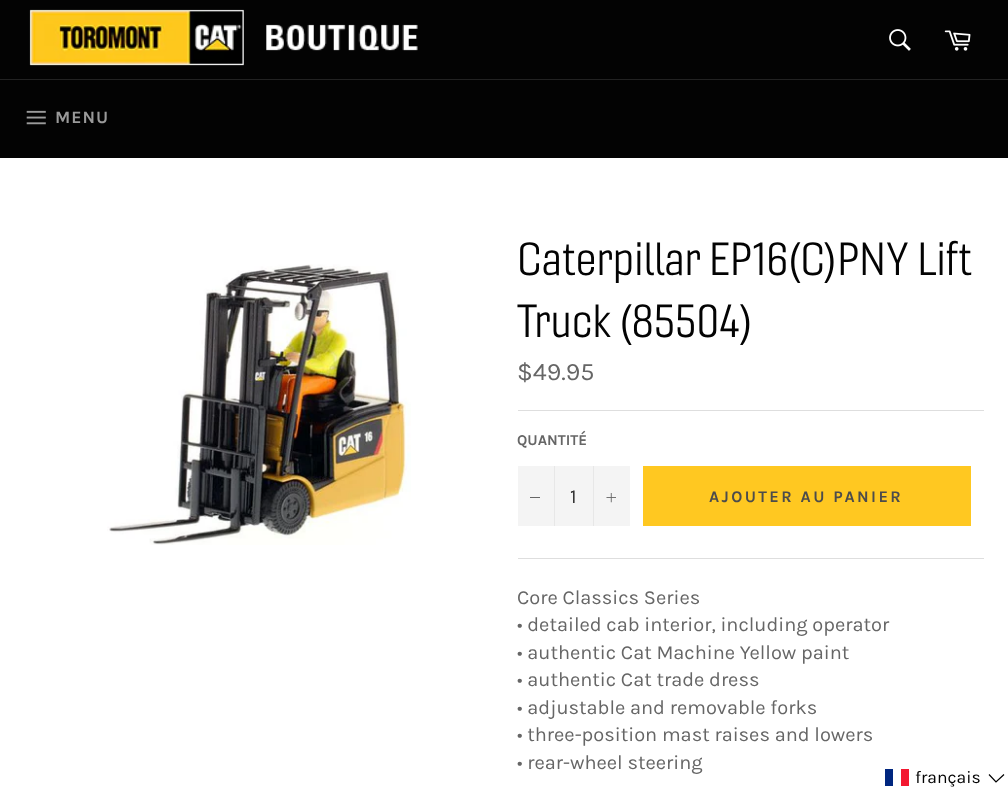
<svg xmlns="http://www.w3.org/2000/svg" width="1008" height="789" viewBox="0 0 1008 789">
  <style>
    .t1 { font: bold 17.5px Karla; letter-spacing: 1px; fill: #9a9a9a; }
    .t2 { font: 45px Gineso; fill: #030303; }
    .t3 { font: 25px Karla; fill: #666; }
    .t4 { font: bold 15px Karla; fill: #666; }
    .t5 { font: 20px Karla; fill: #333; }
    .t6 { font: bold 16.25px Karla; letter-spacing: 2.4px; fill: #4c4c4c; }
    .t7 { font: 20px Karla; fill: #666; }
    .t8 { font: 17.5px Karla; fill: #030303; }
  </style>
  <rect width="100%" height="100%" fill="#030303"/>
  <image x="29" y="9" width="389" height="57" href="images/1.png"/>
  <image x="889" y="29" width="22" height="22" href="images/2.png"/>
  <image x="944" y="30" width="27" height="21" href="images/3.png"/>
  <rect x="0" y="79" width="1008" height="1" fill="#222"/>
  <image x="26" y="110" width="20" height="15" href="images/4.png"/>
  <text x="55" y="123" class="t1">MENU</text>
  <rect x="0" y="158" width="1008" height="631" fill="#fff"/>
  <image x="107" y="264" width="304" height="281" href="images/5.png"/>
  <text x="517" y="275" class="t2">Caterpillar EP16(C)PNY Lift</text>
  <text x="517" y="337" class="t2">Truck (85504)</text>
  <text x="517" y="380" class="t3">$49.95</text>
  <rect x="518" y="410" width="466" height="1" fill="#dedede"/>
  <text x="517" y="445" class="t4">QUANTITÉ</text>
  <rect x="518" y="466" width="112" height="60" fill="#f4f4f4"/>
  <rect x="554" y="466" width="1" height="60" fill="#e7e7e7"/>
  <rect x="530" y="497" width="10" height="1" fill="#666"/>
  <text x="570" y="503" class="t5">1</text>
  <rect x="593" y="466" width="1" height="60" fill="#e7e7e7"/>
  <image x="606" y="493" width="10" height="10" href="images/6.png"/>
  <rect x="643" y="466" width="328" height="60" fill="#ffc821"/>
  <text x="709" y="502" class="t6">AJOUTER AU PANIER</text>
  <rect x="518" y="558" width="466" height="1" fill="#dedede"/>
  <text x="517" y="604" class="t7">Core Classics Series</text>
  <text x="517" y="631" class="t7">• detailed cab interior, including operator</text>
  <text x="517" y="659" class="t7">• authentic Cat Machine Yellow paint</text>
  <text x="517" y="686" class="t7">• authentic Cat trade dress</text>
  <text x="517" y="714" class="t7">• adjustable and removable forks</text>
  <text x="517" y="741" class="t7">• three-position mast raises and lowers</text>
  <text x="517" y="769" class="t7">• rear-wheel steering</text>
  <rect x="885" y="769" width="8" height="17" fill="#00267f"/>
  <rect x="901" y="769" width="8" height="17" fill="#f31830"/>
  <text x="915" y="783" class="t8">français</text>
  <path d="M989 774.5L996 782L1004 774.5" fill="none" stroke="#000" stroke-width="1.2"/>
</svg>
